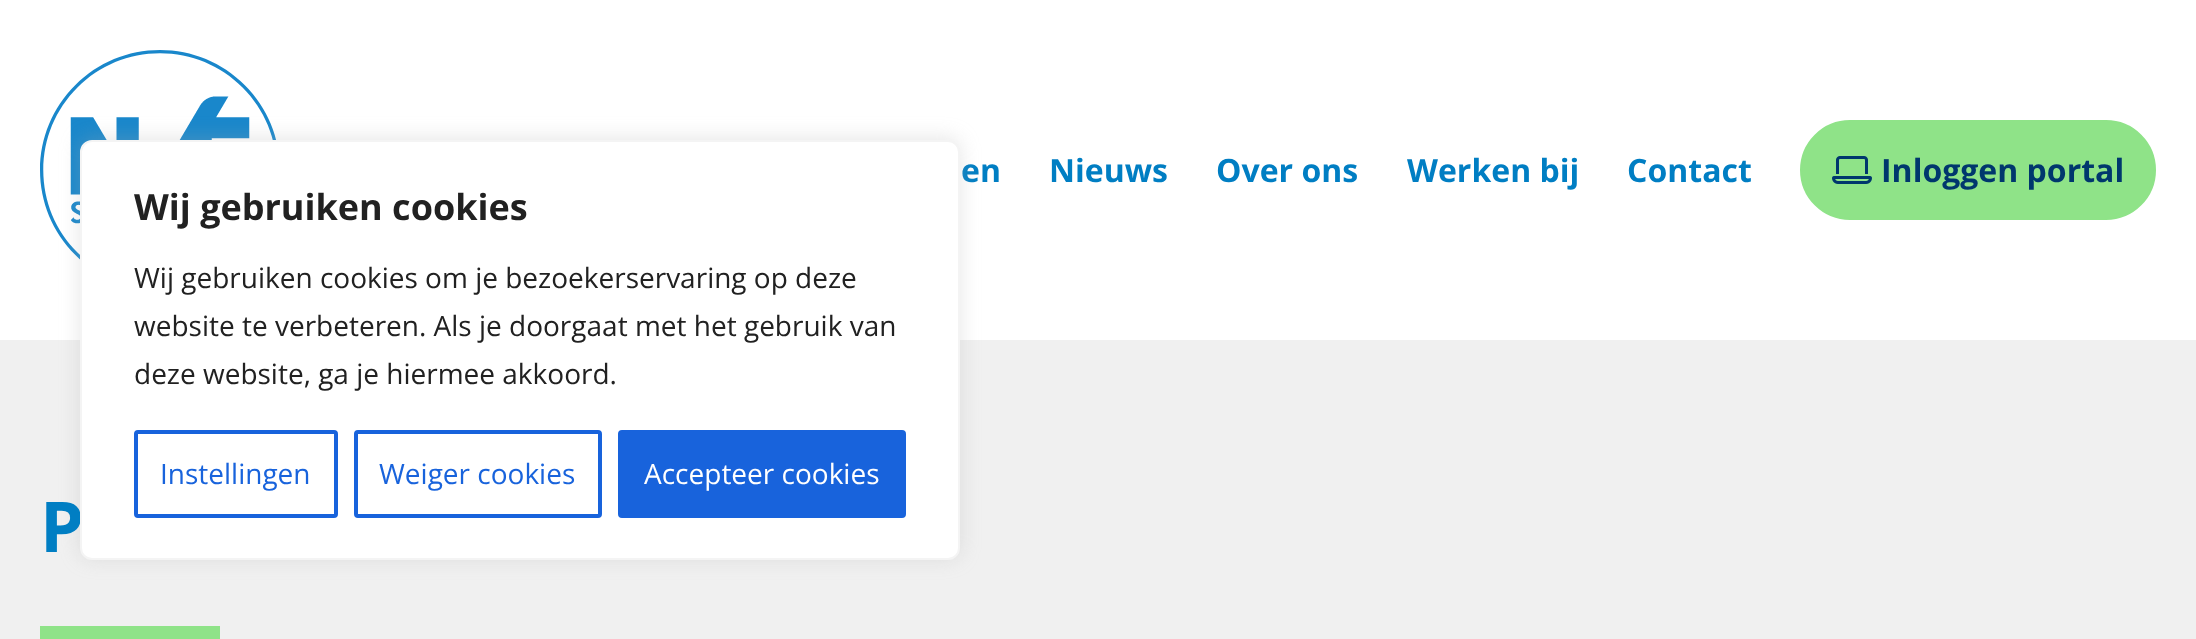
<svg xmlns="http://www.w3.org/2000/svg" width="2196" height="639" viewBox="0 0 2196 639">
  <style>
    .t1 { font: bold 32px Open Sans; fill: #007ec3; }
    .t2 { font: bold 32px Open Sans; fill: #00376d; }
    .t3 { font: bold 70px Open Sans; fill: #007ec3; }
    .t4 { font: bold 36px Open Sans; fill: #212121; }
    .t5 { font: 28px Open Sans; fill: #212121; }
    .t6 { font: 28px Open Sans; fill: #1863dc; }
    .t7 { font: 28px Open Sans; fill: #fff; }
  </style>
  <rect width="100%" height="100%" fill="#f0f0f0"/>
  <rect x="0" y="0" width="2196" height="340" fill="#fff"/>
  <image x="40" y="50" width="236" height="210" href="images/1.png"/>
  <text x="961" y="182" class="t1">en</text>
  <text x="1049" y="182" class="t1">Nieuws</text>
  <text x="1216" y="182" class="t1">Over ons</text>
  <text x="1407" y="182" class="t1">Werken bij</text>
  <text x="1627" y="182" class="t1">Contact</text>
  <rect x="1801" y="121" width="354" height="98" rx="49" fill="#8fe388" stroke="#8fe388" stroke-width="2"/>
  <image x="1832" y="156" width="40" height="28" href="images/2.png"/>
  <text x="1881" y="182" class="t2">Inloggen portal</text>
  <rect x="80" y="138" width="880" height="420" rx="12" fill="#acabab4d" filter="blur(10px)"/>
  <text x="40" y="552" class="t3">P</text>
  <rect x="81" y="141" width="878" height="418" rx="11" fill="#fff" stroke="#f4f4f4" stroke-width="2"/>
  <text x="134" y="220" class="t4">Wij gebruiken cookies</text>
  <text x="134" y="288" class="t5">Wij gebruiken cookies om je bezoekerservaring op deze</text>
  <text x="134" y="336" class="t5">website te verbeteren. Als je doorgaat met het gebruik van</text>
  <text x="134" y="384" class="t5">deze website, ga je hiermee akkoord.</text>
  <rect x="136" y="432" width="200" height="84" rx="2" fill="none" stroke="#1863dc" stroke-width="4"/>
  <text x="160" y="484" class="t6">Instellingen</text>
  <rect x="356" y="432" width="244" height="84" rx="2" fill="none" stroke="#1863dc" stroke-width="4"/>
  <text x="379" y="484" class="t6">Weiger cookies</text>
  <rect x="620" y="432" width="284" height="84" rx="2" fill="#1863dc" stroke="#1863dc" stroke-width="4"/>
  <text x="644" y="484" class="t7">Accepteer cookies</text>
  <rect x="40" y="626" width="180" height="13" fill="#8fe388"/>
</svg>
